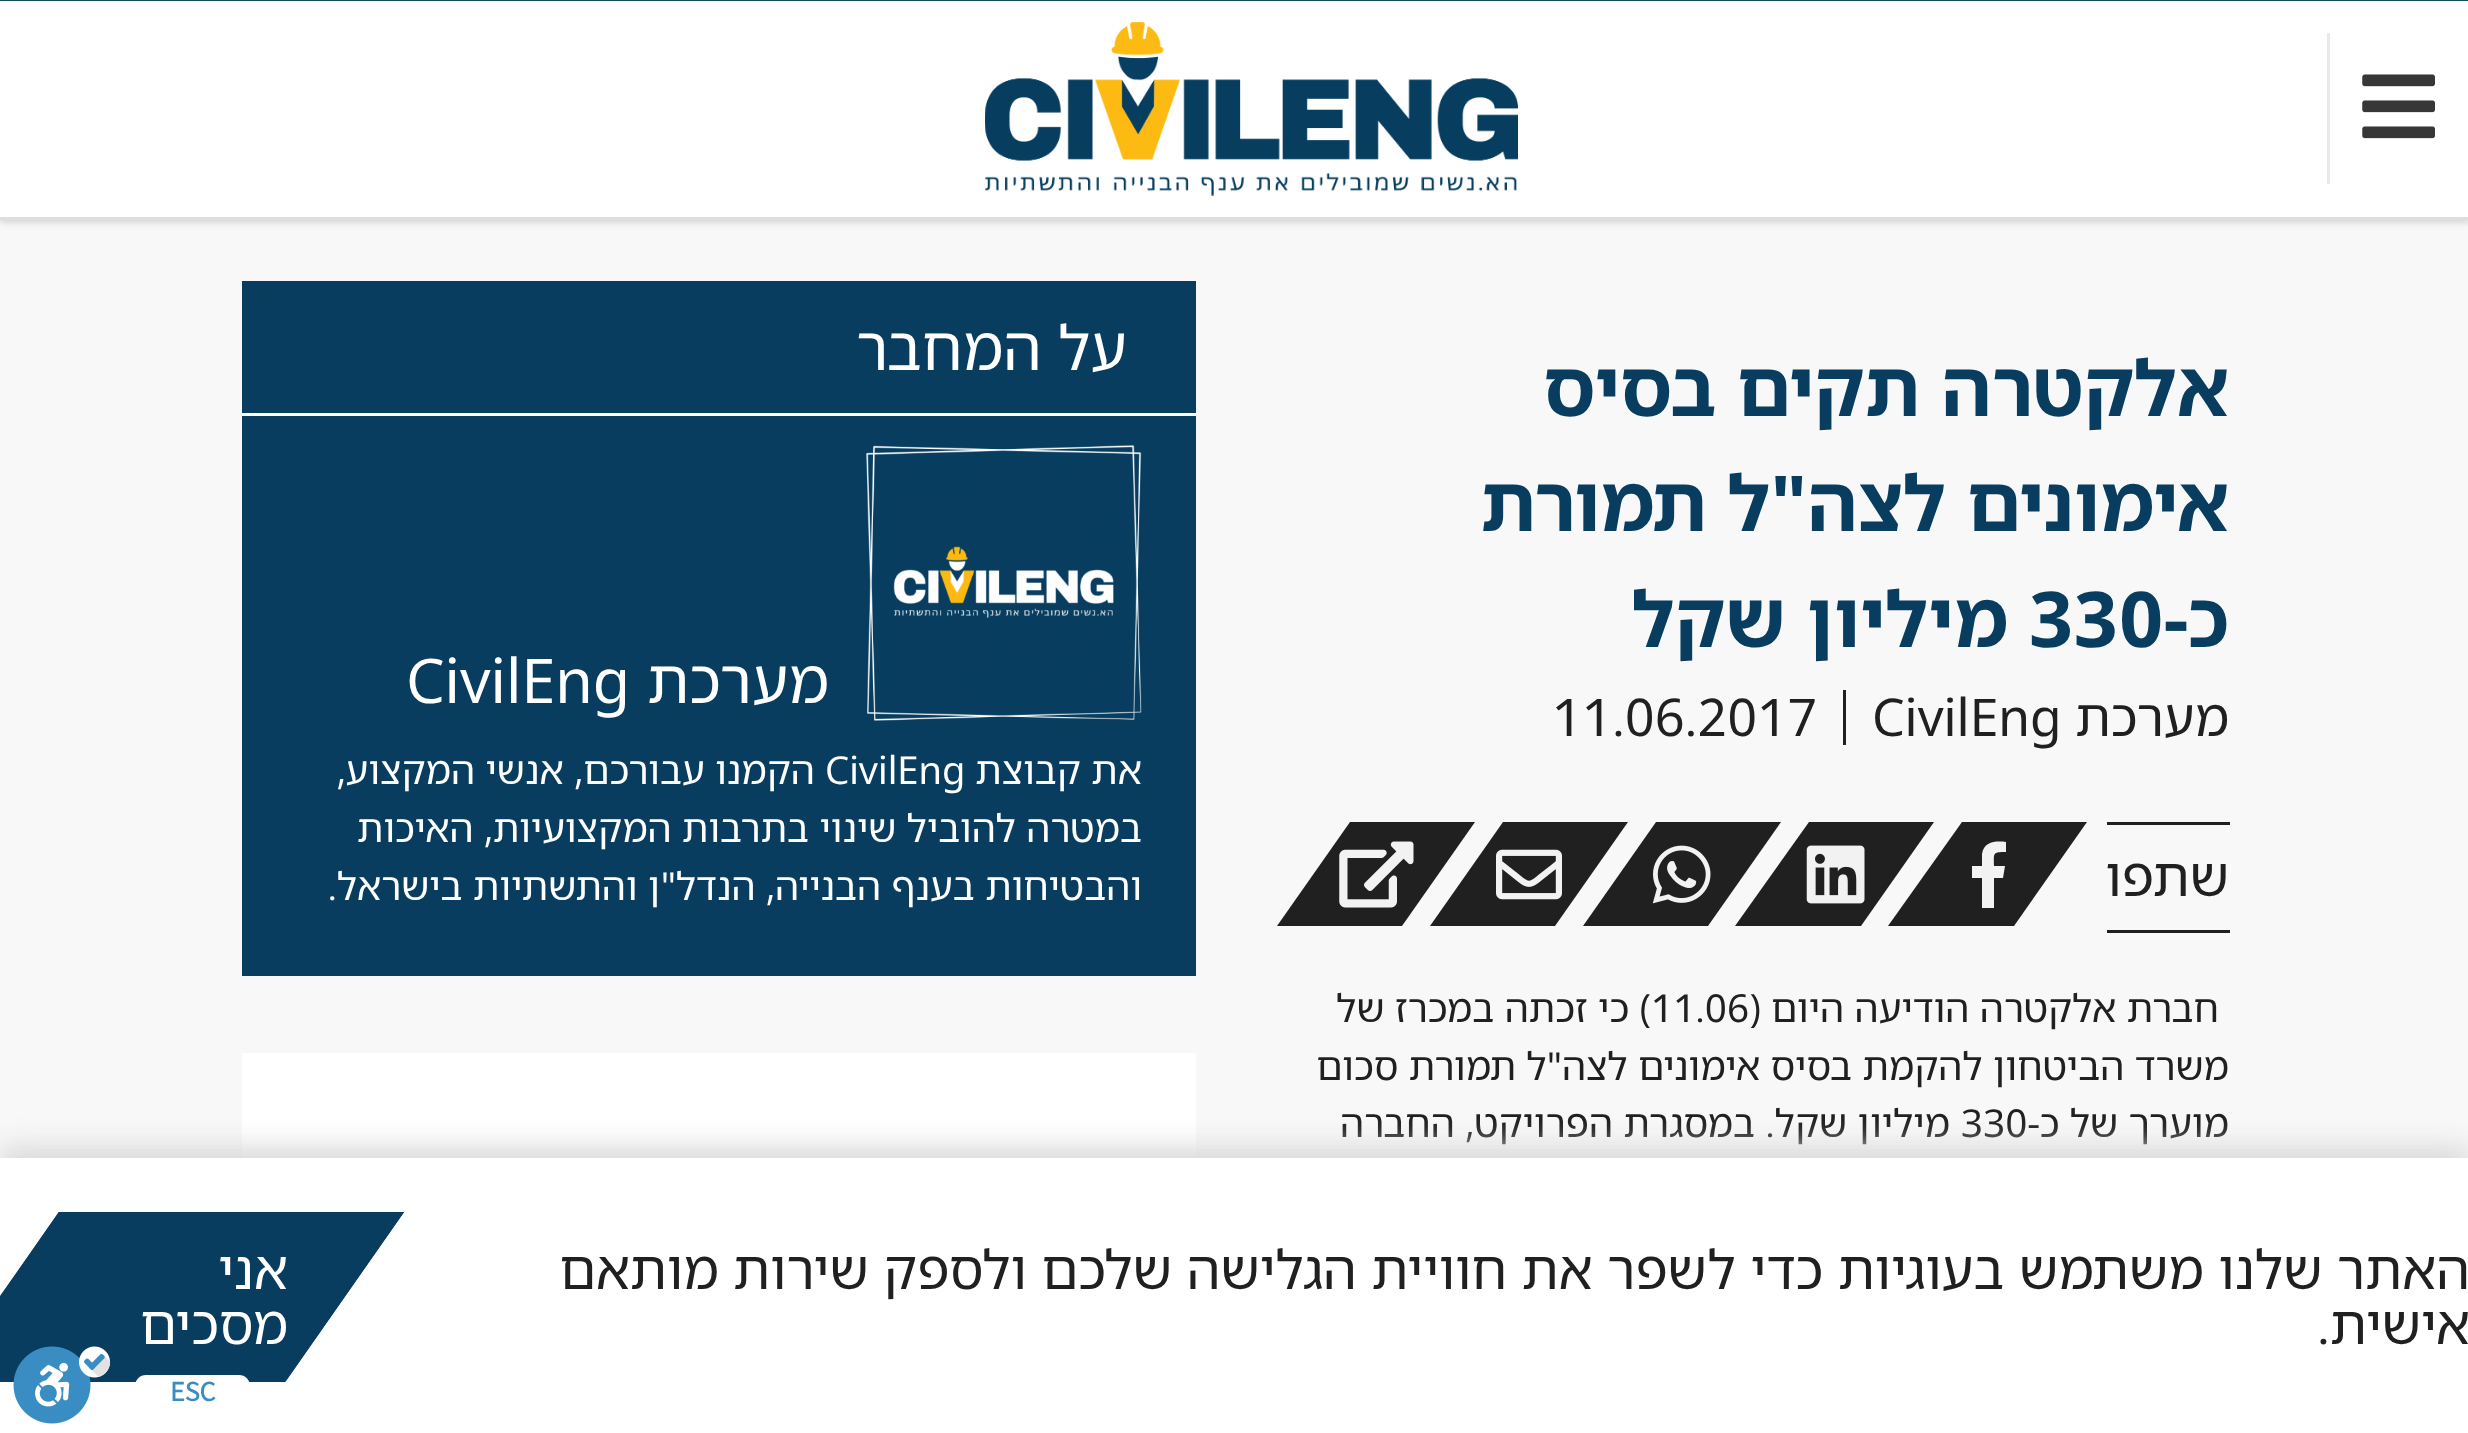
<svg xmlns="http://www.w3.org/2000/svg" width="2468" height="1433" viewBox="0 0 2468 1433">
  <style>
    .t1 { font: bold 77px Noto Sans Hebrew; direction: rtl; fill: #083d60; }
    .t2 { font: bold 77px Noto Sans Hebrew; fill: #083d60; }
    .t3 { font: 52px Noto Sans Hebrew; direction: rtl; fill: #202020; }
    .t4 { font: 52px Noto Sans Hebrew; fill: #202020; }
    .t5 { font: 53.9px Noto Sans Hebrew; direction: rtl; fill: #202020; }
    .t6 { font: 38.5px Noto Sans Hebrew; direction: rtl; fill: #202020; }
    .t7 { font: 38.5px Noto Sans Hebrew; fill: #202020; }
    .t8 { font: 61.5px Noto Sans Hebrew; direction: rtl; fill: #fff; }
    .t9 { font: 61.5px Noto Sans Hebrew; fill: #fff; }
    .t10 { font: 38.5px Noto Sans Hebrew; direction: rtl; fill: #fff; }
    .t11 { font: 38.5px Noto Sans Hebrew; fill: #fff; }
    .t12 { font: 53.9px Noto Sans Hebrew; direction: rtl; fill: #fff; }
    .t13 { font: bold 28px Assistant; fill: #3a8dc2; }
  </style>
  <rect width="100%" height="100%" fill="#f8f8f8"/>
  <rect x="0" y="3" width="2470" height="220" fill="#22242626" filter="blur(3px)"/>
  <rect x="0" y="1" width="2468" height="216" fill="#fff"/>
  <rect x="0" y="217" width="2468" height="3" fill="#dedede"/>
  <image x="2362" y="74" width="73" height="65" href="images/1.png"/>
  <rect x="2327" y="33" width="3" height="151" fill="#e9e9e9"/>
  <image x="985" y="22" width="533" height="174" href="images/2.png"/>
  <text x="2229" y="416" class="t1">אלקטרה תקים בסיס</text>
  <text x="2229" y="531" class="t1">אימונים לצה"ל תמורת</text>
  <text x="2229" y="647" class="t1">כ-</text>
  <text x="2029" y="647" class="t2">330</text>
  <text x="2008" y="647" class="t1">מיליון שקל</text>
  <rect x="1843" y="690" width="3" height="55" fill="#202020"/>
  <text x="2229" y="736" class="t3">מערכת</text>
  <text x="1872" y="736" class="t4">CivilEng</text>
  <text x="1552" y="736" class="t4">11.06.2017</text>
  <rect x="2107" y="822" width="123" height="3" fill="#202020"/>
  <rect x="2107" y="930" width="123" height="3" fill="#202020"/>
  <text x="2229" y="896" class="t5">שתפו</text>
  <path d="M1962 822H2087L2014 926H1888Z" fill="#202020"/>
  <path d="M1982 908V878H1972V866H1982V854C1984 841 1996 841 2006 842V852C1992 852 1994 853 1994 866H2005L2003 878H1994V908Z" fill="#f2f2f2"/>
  <path d="M1809 822H1934L1861 926H1735Z" fill="#202020"/>
  <image x="1806" y="845" width="59" height="59" href="images/3.png"/>
  <path d="M1656 822H1781L1708 926H1583Z" fill="#202020"/>
  <image x="1652" y="845" width="59" height="59" href="images/4.png"/>
  <path d="M1503 822H1628L1555 926H1430Z" fill="#202020"/>
  <image x="1496" y="849" width="66" height="51" href="images/5.png"/>
  <path d="M1350 822H1475L1402 926H1277Z" fill="#202020"/>
  <image x="1339" y="841" width="75" height="67" href="images/6.png"/>
  <text x="2219" y="1022" class="t6">חברת אלקטרה הודיעה היום (</text>
  <text x="1651" y="1022" class="t7">11.06</text>
  <text x="1651" y="1022" class="t6">) כי זכתה במכרז של</text>
  <text x="2229" y="1080" class="t6">משרד הביטחון להקמת בסיס אימונים לצה"ל תמורת סכום</text>
  <text x="2229" y="1137" class="t6">מוערך של כ-</text>
  <text x="1961" y="1137" class="t7">330</text>
  <text x="1950" y="1137" class="t6">מיליון שקל. במסגרת הפרויקט, החברה</text>
  <rect x="242" y="281" width="954" height="695" fill="#083d60"/>
  <rect x="242" y="413" width="954" height="3" fill="#fff"/>
  <text x="1127" y="370" class="t8">על המחבר</text>
  <image x="866" y="445" width="276" height="276" href="images/7.png"/>
  <text x="829" y="703" class="t8">מערכת</text>
  <text x="406" y="703" class="t9">CivilEng</text>
  <text x="1142" y="784" class="t10">את קבוצת</text>
  <text x="825" y="784" class="t11">CivilEng</text>
  <text x="815" y="784" class="t10">הקמנו עבורכם, אנשי המקצוע,</text>
  <text x="1142" y="842" class="t10">במטרה להוביל שינוי בתרבות המקצועיות, האיכות</text>
  <text x="1142" y="900" class="t10">והבטיחות בענף הבנייה, הנדל"ן והתשתיות בישראל.</text>
  <rect x="242" y="1053" width="954" height="105" fill="#fff"/>
  <rect x="0" y="1147" width="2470" height="278" fill="#d8d8d8" filter="blur(14px)"/>
  <rect x="0" y="1158" width="2468" height="275" fill="#fff"/>
  <text x="2470" y="1289" class="t5">האתר שלנו משתמש בעוגיות כדי לשפר את חוויית הגלישה שלכם ולספק שירות מותאם</text>
  <text x="2470" y="1344" class="t5">אישית.</text>
  <path d="M59 1212H404L285 1382H-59Z" fill="#083d60"/>
  <path d="M59.5 1213.5H401.5L285 1380H-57Z" fill="none" stroke="#083d60" stroke-width="2.8"/>
  <text x="288" y="1289" class="t12">אני</text>
  <text x="288" y="1344" class="t12">מסכים</text>
  <rect x="0" y="0" width="2468" height="1" fill="#15495f"/>
  <rect x="135" y="1375" width="115" height="39" rx="11" fill="#fff"/>
  <text x="170" y="1401" class="t13">ESC</text>
  <image x="13" y="1346" width="98" height="78" href="images/8.png"/>
</svg>
